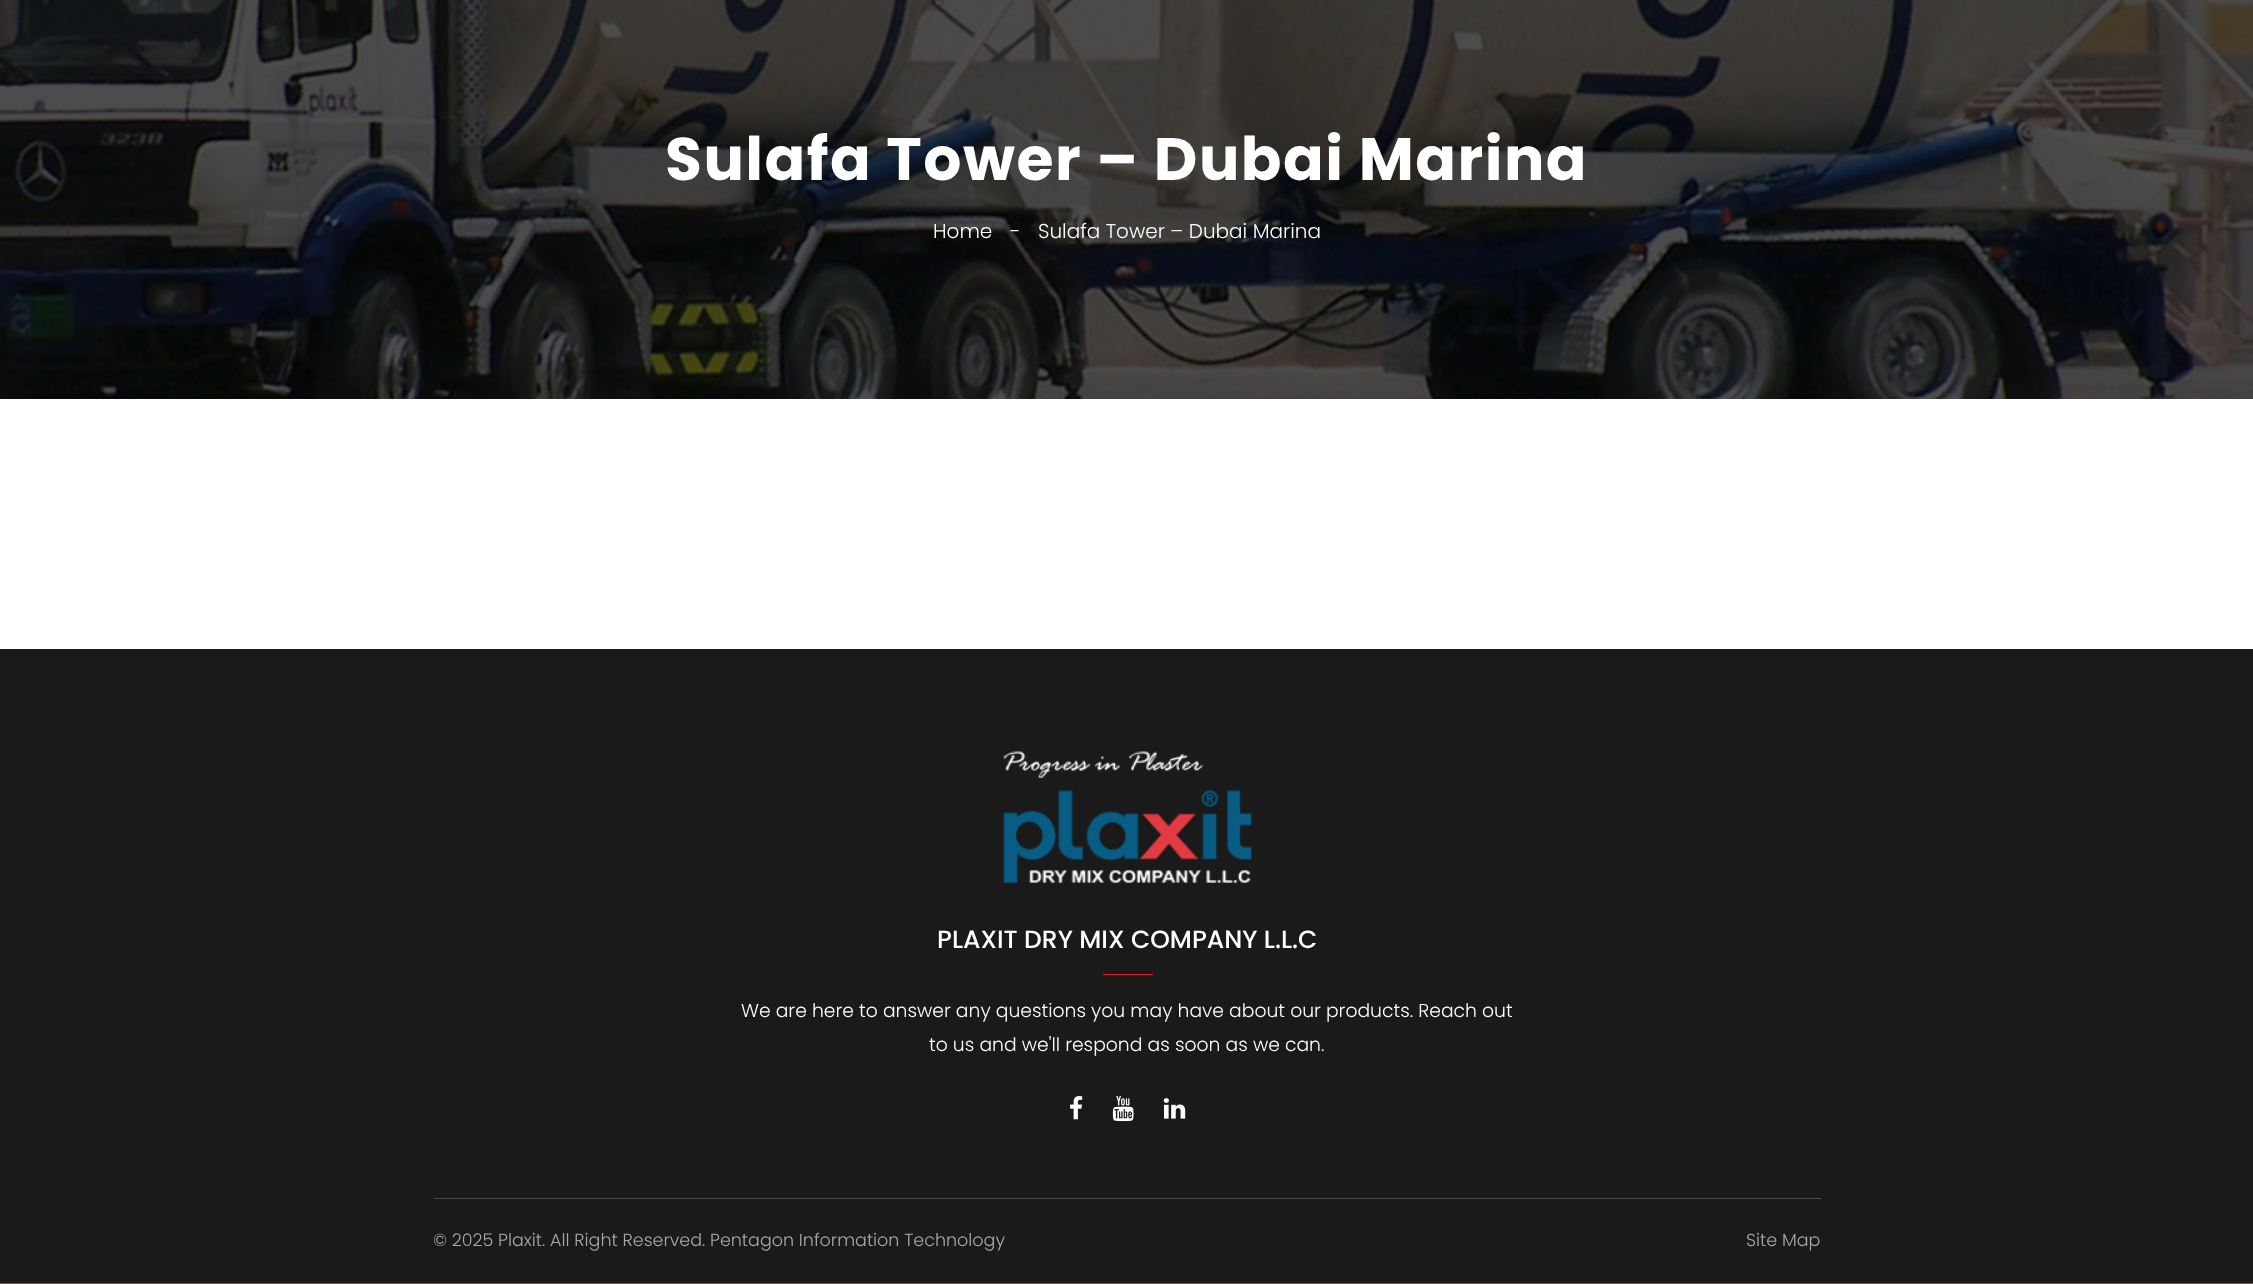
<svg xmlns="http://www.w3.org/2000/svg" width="2253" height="1284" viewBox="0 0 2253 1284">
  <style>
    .t1 { font: bold 60px Poppins; letter-spacing: 1.5px; fill: #fff; }
    .t2 { font: 300 20px Poppins; fill: #fff; }
    .t3 { font: 500 25px Poppins; fill: #fff; }
    .t4 { font: 300 18.75px Poppins; fill: #fff; }
    .t5 { font: 300 17.5px Poppins; fill: #a9a9a9; }
  </style>
  <rect width="100%" height="100%" fill="#fff"/>
  <image x="0" y="0" width="2253" height="399" href="images/1.png"/>
  <text x="665" y="180" class="t1">Sulafa Tower – Dubai Marina</text>
  <text x="933" y="238" class="t2">Home</text>
  <text x="1010" y="238" class="t2">-</text>
  <text x="1038" y="238" class="t2">Sulafa Tower – Dubai Marina</text>
  <rect x="0" y="649" width="2253" height="634" fill="#1a1a1a"/>
  <rect x="0" y="1283" width="2253" height="1" fill="#eb1922"/>
  <image x="1003" y="751" width="249" height="132" href="images/2.png"/>
  <text x="937" y="948" class="t3">PLAXIT DRY MIX COMPANY L.L.C</text>
  <rect x="1103" y="974" width="50" height="1" fill="#eb1922"/>
  <text x="741" y="1017" class="t4">We are here to answer any questions you may have about our products. Reach out</text>
  <text x="929" y="1051" class="t4">to us and we'll respond as soon as we can.</text>
  <image x="1070" y="1096" width="13" height="24" href="images/3.png"/>
  <image x="1112" y="1096" width="22" height="26" href="images/4.png"/>
  <image x="1163" y="1098" width="23" height="21" href="images/5.png"/>
  <rect x="434" y="1198" width="1387" height="1" fill="#484848"/>
  <text x="433" y="1246" class="t5">© 2025 Plaxit. All Right Reserved. Pentagon Information Technology</text>
  <text x="1746" y="1246" class="t5">Site Map</text>
</svg>
